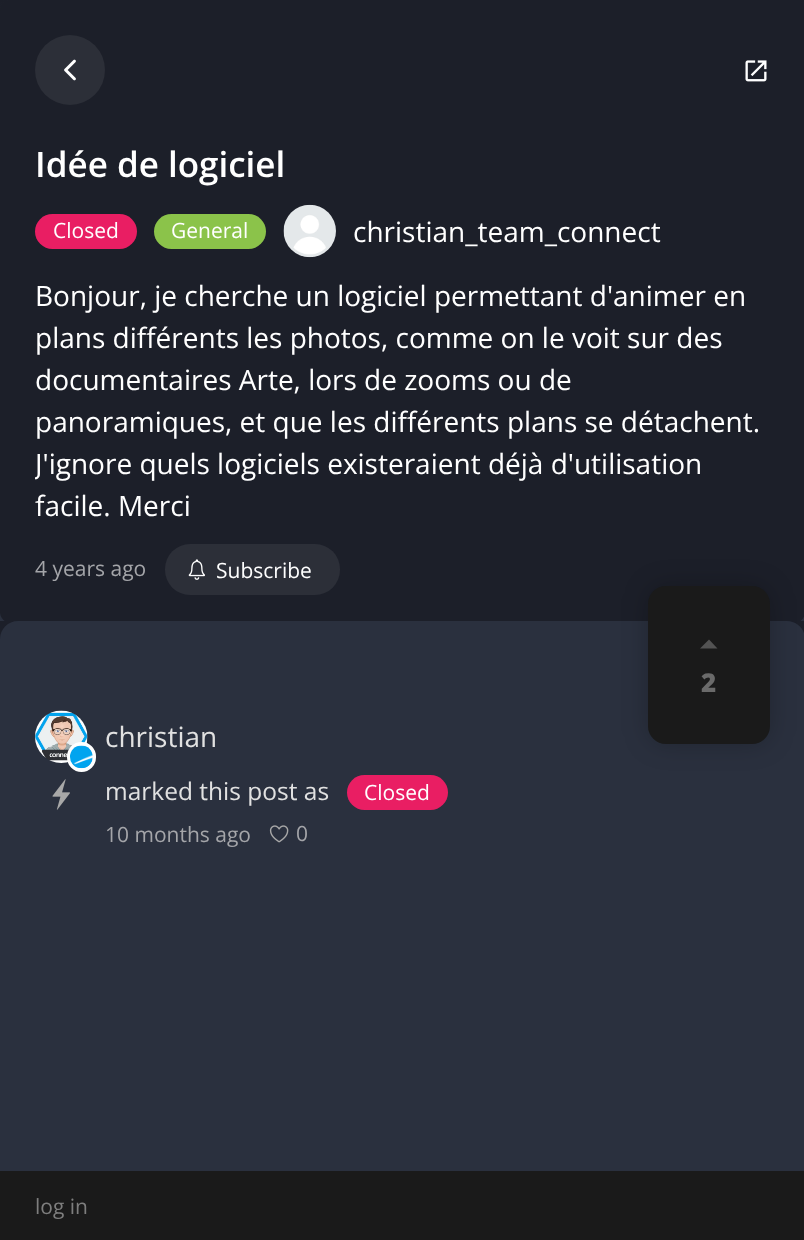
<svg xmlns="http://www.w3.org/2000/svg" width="804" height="1240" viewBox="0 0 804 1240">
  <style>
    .t1 { font: 600 35px Open Sans; fill: #fff; }
    .t2 { font: 21px Open Sans; fill: #fff; }
    .t3 { font: 28px Open Sans; fill: #fff; }
    .t4 { font: 21px Open Sans; fill: #a4a5a9; }
    .t5 { font: 800 26px Open Sans; fill: #6a6a6a; }
    .t6 { font: 28px Open Sans; fill: #e1e1e1; }
    .t7 { font: 24.5px Open Sans; fill: #e1e1e1; }
    .t8 { font: 21px Open Sans; fill: #7e7e7e; }
  </style>
  <defs>
    <linearGradient id="g1" gradientUnits="userSpaceOnUse" x1="403" y1="0" x2="403" y2="140"><stop offset="0" stop-color="#1c1f29"/><stop offset="1" stop-color="#1c1f29" stop-opacity="0"/></linearGradient>
    <clipPath id="clip1"><rect x="35" y="275" width="735" height="252"/></clipPath>
  </defs>
  <rect width="100%" height="100%" fill="#2a303e"/>
  <rect x="0" y="0" width="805" height="623" rx="11" fill="#1c1f29"/>
  <rect x="0" y="0" width="804" height="10" fill="url(#g1)"/>
  <circle cx="70" cy="70" r="35" fill="#2c2f38"/>
  <image x="64" y="59" width="12" height="22" href="images/1.png"/>
  <image x="745" y="60" width="22" height="22" href="images/2.png"/>
  <text x="35" y="177" class="t1">Idée de logiciel</text>
  <rect x="35" y="214" width="102" height="35" rx="17.5" fill="#e91e63"/>
  <text x="53" y="238" class="t2">Closed</text>
  <rect x="154" y="214" width="112" height="35" rx="17.5" fill="#8bc34a"/>
  <text x="171" y="238" class="t2">General</text>
  <image x="283" y="204" width="53" height="54" href="images/3.png"/>
  <text x="353" y="242" class="t3">christian_team_connect</text>
  <text x="35" y="306" class="t3">Bonjour, je cherche un logiciel permettant d'animer en</text>
  <text x="35" y="348" class="t3">plans différents les photos, comme on le voit sur des</text>
  <text x="35" y="390" class="t3">documentaires Arte, lors de zooms ou de</text>
  <text x="35" y="432" class="t3">panoramiques, et que les différents plans se détachent.</text>
  <g clip-path="url(#clip1)">
    <text x="35" y="474" class="t3">J'ignore quels logiciels existeraient déjà d'utilisation</text>
  </g>
  <text x="35" y="516" class="t3">facile. Merci</text>
  <text x="35" y="576" class="t4">4 years ago</text>
  <rect x="165" y="544" width="175" height="51" rx="25" fill="#2c2f38"/>
  <image x="188" y="559" width="17" height="21" href="images/4.png"/>
  <text x="216" y="578" class="t2">Subscribe</text>
  <rect x="0" y="621" width="804" height="18" fill="#1c1f29"/>
  <path d="M18 621H787C797 621 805 629 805 639H0C0 629 8 621 18 621Z" fill="#2a303e"/>
  <rect x="648" y="586" width="122" height="158" rx="18" fill="#00000038" filter="blur(13px)"/>
  <rect x="648" y="586" width="122" height="158" rx="18" fill="#1a1a1a"/>
  <path d="M700 648.5L709 639.5L717.5 648.5Z" fill="#535353"/>
  <text x="701" y="692" class="t5">2</text>
  <image x="35" y="710" width="53" height="53" href="images/5.png"/>
  <rect x="69" y="744" width="25" height="26" rx="12.5" fill="none" stroke="#fff" stroke-width="4"/>
  <image x="70" y="745" width="23" height="24" href="images/6.png"/>
  <text x="105" y="747" class="t6">christian</text>
  <image x="52" y="779" width="18" height="31" href="images/7.png"/>
  <text x="105" y="800" class="t7">marked this post as</text>
  <rect x="347" y="775" width="101" height="35" rx="17.5" fill="#e91e63"/>
  <text x="364" y="800" class="t2">Closed</text>
  <text x="105" y="842" class="t4">10 months ago</text>
  <image x="269" y="825" width="20" height="18" href="images/8.png"/>
  <text x="296" y="841" class="t4">0</text>
  <rect x="0" y="1171" width="804" height="69" fill="#1a1a1a"/>
  <text x="35" y="1214" class="t8">log in</text>
</svg>
